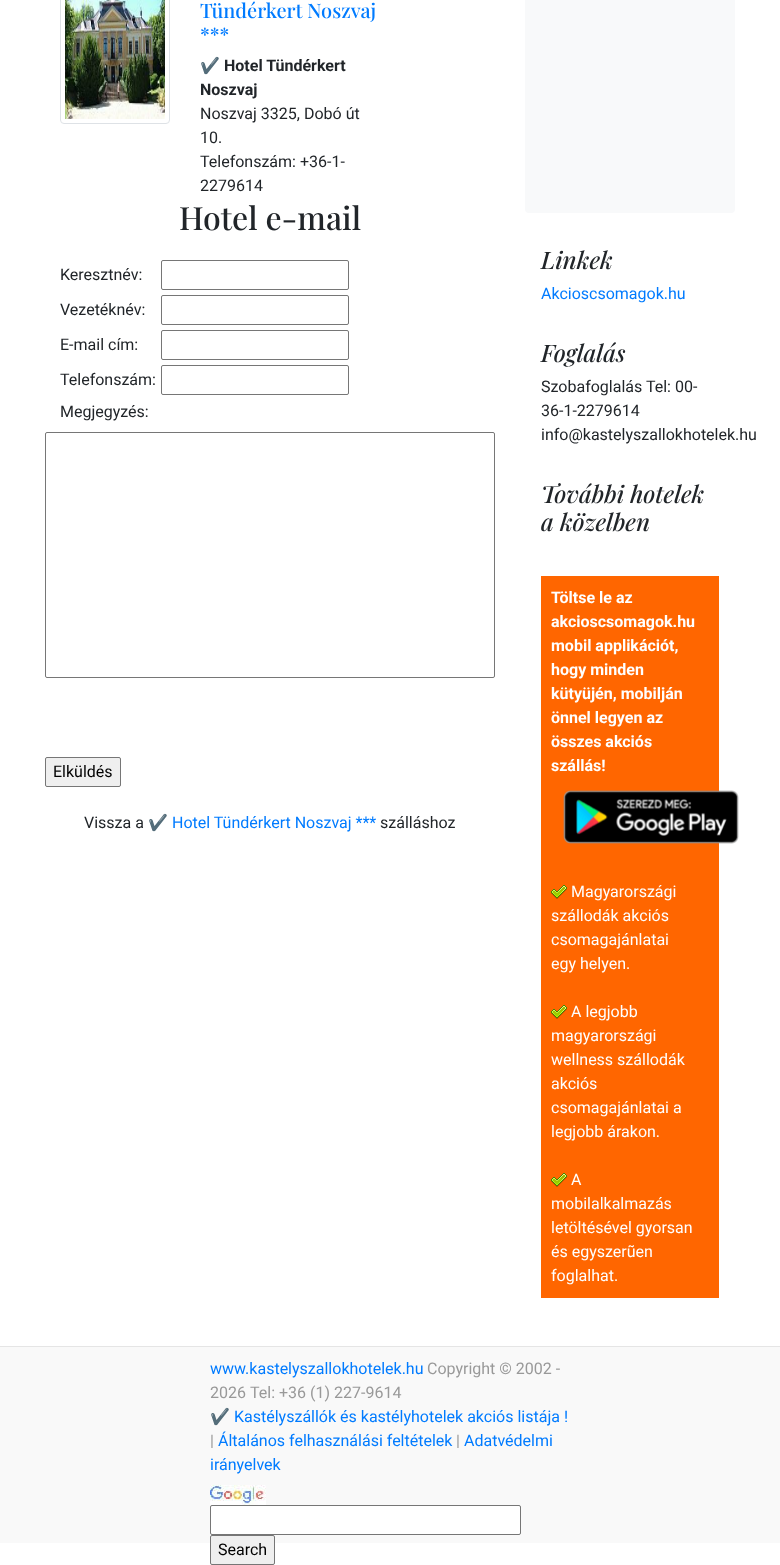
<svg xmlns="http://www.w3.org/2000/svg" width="780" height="1565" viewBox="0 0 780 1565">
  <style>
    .t1 { font: 500 20px Playfair Display; fill: #007bff; }
    .t2 { font: bold 16px Noto Color Emoji; fill: #212529; }
    .t3 { font: bold 16px Roboto; fill: #212529; }
    .t4 { font: 16px Roboto; fill: #212529; }
    .t5 { font: 500 32px Playfair Display; fill: #212529; }
    .t6 { font: 16px Roboto; fill: #000; }
    .t7 { font: 16px Noto Color Emoji; fill: #007bff; }
    .t8 { font: 16px Roboto; fill: #007bff; }
    .t9 { font: italic 500 24px Playfair Display; fill: #212529; }
    .t10 { font: bold 16px Roboto; fill: #fff; }
    .t11 { font: 16px Roboto; fill: #fff; }
    .t12 { font: 16px Roboto; fill: #999; }
  </style>
  <rect width="100%" height="100%" fill="#fff"/>
  <rect x="60.5" y="-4.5" width="109" height="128" rx="3.5" fill="none" stroke="#dee2e6"/>
  <image x="65" y="0" width="100" height="119" href="images/1.png"/>
  <text x="200" y="18" class="t1">Tündérkert Noszvaj</text>
  <text x="200" y="42" class="t1">***</text>
  <text x="200" y="71" class="t2">✔️</text>
  <text x="224" y="71" class="t3">Hotel Tündérkert</text>
  <text x="200" y="95" class="t3">Noszvaj</text>
  <text x="200" y="119" class="t4">Noszvaj 3325, Dobó út</text>
  <text x="200" y="143" class="t4">10.</text>
  <text x="200" y="167" class="t4">Telefonszám: +36-1-</text>
  <text x="200" y="191" class="t4">2279614</text>
  <text x="179" y="230" class="t5">Hotel e-mail</text>
  <text x="60" y="280" class="t4">Keresztnév:</text>
  <rect x="161.5" y="260.5" width="187" height="29" rx="1.5" fill="none" stroke="#767676"/>
  <text x="60" y="315" class="t4">Vezetéknév:</text>
  <rect x="161.5" y="295.5" width="187" height="29" rx="1.5" fill="none" stroke="#767676"/>
  <text x="60" y="350" class="t4">E-mail cím:</text>
  <rect x="161.5" y="330.5" width="187" height="29" rx="1.5" fill="none" stroke="#767676"/>
  <text x="60" y="385" class="t4">Telefonszám:</text>
  <rect x="161.5" y="365.5" width="187" height="29" rx="1.5" fill="none" stroke="#767676"/>
  <text x="60" y="417" class="t4">Megjegyzés:</text>
  <rect x="45.5" y="432.5" width="449" height="245" rx="1.5" fill="none" stroke="#767676"/>
  <rect x="45.5" y="757.5" width="75" height="29" rx="1.5" fill="#efefef" stroke="#767676"/>
  <text x="53" y="777" class="t6">Elküldés</text>
  <text x="84" y="828" class="t4">Vissza a</text>
  <text x="148" y="828" class="t7">✔️</text>
  <text x="172" y="828" class="t8">Hotel Tündérkert Noszvaj ***</text>
  <text x="380" y="828" class="t4">szálláshoz</text>
  <rect x="525" y="-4" width="210" height="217" rx="4" fill="#f8f9fa"/>
  <text x="541" y="269" class="t9">Linkek</text>
  <text x="541" y="299" class="t8">Akcioscsomagok.hu</text>
  <text x="541" y="362" class="t9">Foglalás</text>
  <text x="541" y="392" class="t4">Szobafoglalás Tel: 00-</text>
  <text x="541" y="416" class="t4">36-1-2279614</text>
  <text x="541" y="440" class="t4">info@kastelyszallokhotelek.hu</text>
  <text x="541" y="503" class="t9">További hotelek</text>
  <text x="541" y="531" class="t9">a közelben</text>
  <rect x="541" y="576" width="178" height="722" fill="#f60"/>
  <text x="551" y="603" class="t10">Töltse le az</text>
  <text x="551" y="627" class="t10">akcioscsomagok.hu</text>
  <text x="551" y="651" class="t10">mobil applikációt,</text>
  <text x="551" y="675" class="t10">hogy minden</text>
  <text x="551" y="699" class="t10">kütyüjén, mobilján</text>
  <text x="551" y="723" class="t10">önnel legyen az</text>
  <text x="551" y="747" class="t10">összes akciós</text>
  <text x="551" y="771" class="t10">szállás!</text>
  <image x="563" y="790" width="176" height="54" href="images/2.png"/>
  <image x="551" y="885" width="16" height="14" href="images/3.png"/>
  <text x="571" y="897" class="t11">Magyarországi</text>
  <text x="551" y="921" class="t11">szállodák akciós</text>
  <text x="551" y="945" class="t11">csomagajánlatai</text>
  <text x="551" y="969" class="t11">egy helyen.</text>
  <image x="551" y="1005" width="16" height="14" href="images/3.png"/>
  <text x="571" y="1017" class="t11">A legjobb</text>
  <text x="551" y="1041" class="t11">magyarországi</text>
  <text x="551" y="1065" class="t11">wellness szállodák</text>
  <text x="551" y="1089" class="t11">akciós</text>
  <text x="551" y="1113" class="t11">csomagajánlatai a</text>
  <text x="551" y="1137" class="t11">legjobb árakon.</text>
  <image x="551" y="1173" width="16" height="14" href="images/3.png"/>
  <text x="571" y="1185" class="t11">A</text>
  <text x="551" y="1209" class="t11">mobilalkalmazás</text>
  <text x="551" y="1233" class="t11">letöltésével gyorsan</text>
  <text x="551" y="1257" class="t11">és egyszerũen</text>
  <text x="551" y="1281" class="t11">foglalhat.</text>
  <rect x="0" y="1347" width="780" height="196" fill="#f9f9f9"/>
  <rect x="0" y="1346" width="780" height="1" fill="#e5e5e5"/>
  <text x="210" y="1374" class="t8">www.kastelyszallokhotelek.hu</text>
  <text x="427" y="1374" class="t12">Copyright © 2002 -</text>
  <text x="210" y="1398" class="t12">2026</text>
  <text x="250" y="1398" class="t12">Tel: +36 (1) 227-9614</text>
  <text x="210" y="1422" class="t7">✔️</text>
  <text x="234" y="1422" class="t8">Kastélyszállók és kastélyhotelek akciós listája !</text>
  <text x="210" y="1446" class="t12">|</text>
  <text x="218" y="1446" class="t8">Általános felhasználási feltételek</text>
  <text x="456" y="1446" class="t12">|</text>
  <text x="464" y="1446" class="t8">Adatvédelmi</text>
  <text x="210" y="1470" class="t8">irányelvek</text>
  <image x="210" y="1485" width="56" height="20" href="images/4.png"/>
  <rect x="210.5" y="1505.5" width="310" height="29" rx="1.5" fill="#fff" stroke="#767676"/>
  <rect x="210.5" y="1535.5" width="64" height="29" rx="1.5" fill="#efefef" stroke="#767676"/>
  <text x="218" y="1555" class="t6">Search</text>
</svg>
